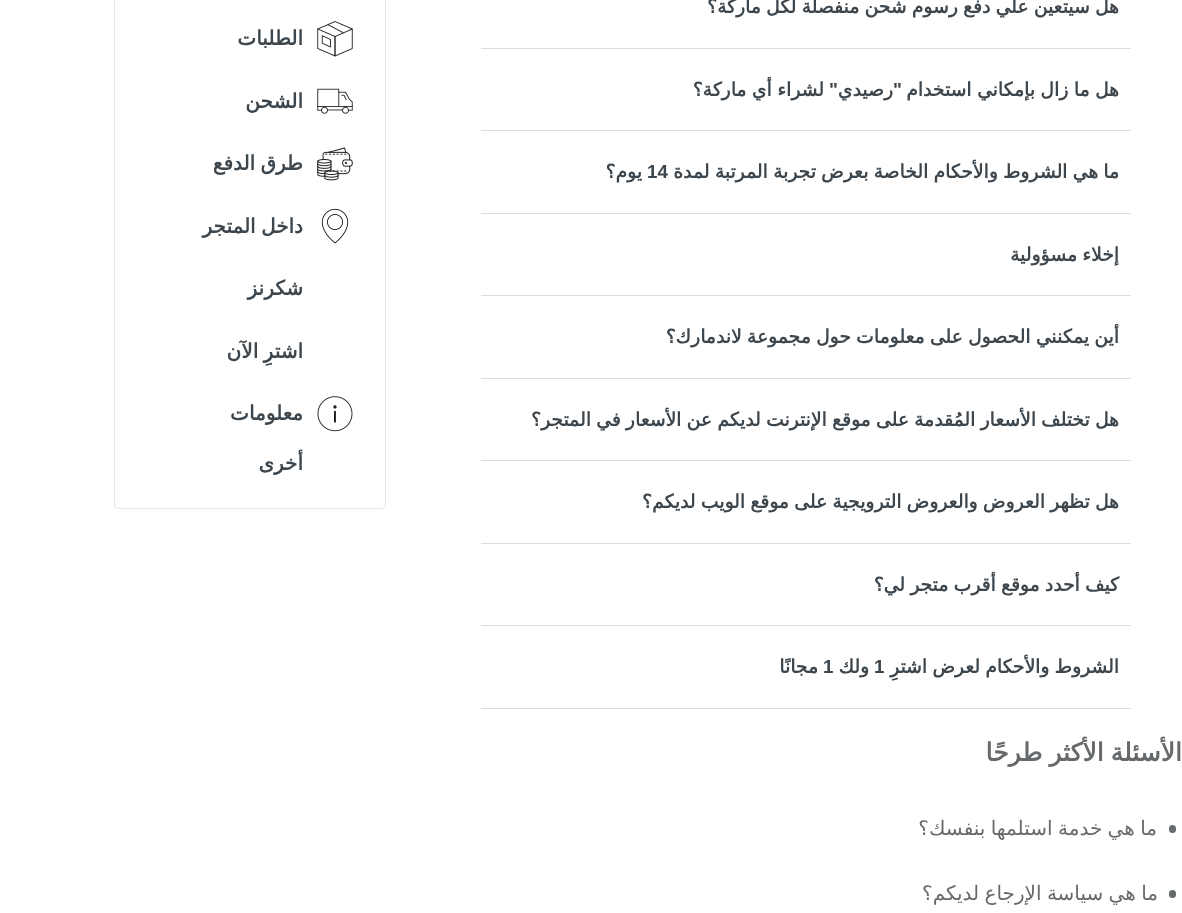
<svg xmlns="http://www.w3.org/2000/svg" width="1182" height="913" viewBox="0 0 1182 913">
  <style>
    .t1 { font: bold 18.75px DejaVu Sans; direction: rtl; fill: #3d464d; }
    .t2 { font: bold 18.75px Liberation Sans; direction: rtl; fill: #3d464d; }
    .t3 { font: bold 18.75px Liberation Sans; fill: #3d464d; }
    .t4 { font: bold 20px DejaVu Sans; direction: rtl; fill: #3d464d; }
    .t5 { font: bold 25px DejaVu Sans; direction: rtl; fill: #676a6c; }
    .t6 { font: 20px DejaVu Sans; direction: rtl; fill: #676a6c; }
  </style>
  <rect width="100%" height="100%" fill="#fff"/>
  <rect x="481" y="48" width="650" height="1" fill="#ddd"/>
  <text x="1119" y="13" word-spacing="-0.75" class="t1">هل سيتعين علي دفع رسوم شحن منفصلة لكل ماركة؟</text>
  <rect x="481" y="130" width="650" height="1" fill="#ddd"/>
  <text x="1119" y="96" word-spacing="-0.5" class="t1">هل ما زال بإمكاني استخدام</text>
  <text x="902" y="96" class="t2">"</text>
  <text x="838" y="96" class="t2">"</text>
  <text x="824" y="96" word-spacing="-0.5" class="t1">لشراء أي ماركة؟</text>
  <text x="893" y="96" class="t1">رصيدي</text>
  <rect x="481" y="213" width="650" height="1" fill="#ddd"/>
  <text x="1119" y="178" word-spacing="-0.75" class="t1">ما هي الشروط والأحكام الخاصة بعرض تجربة المرتبة لمدة</text>
  <text x="647" y="178" class="t3">14</text>
  <text x="642" y="178" class="t1">يوم؟</text>
  <rect x="481" y="295" width="650" height="1" fill="#ddd"/>
  <text x="1119" y="261" word-spacing="-0.75" class="t1">إخلاء مسؤولية</text>
  <rect x="481" y="378" width="650" height="1" fill="#ddd"/>
  <text x="1119" y="343" word-spacing="-0.75" class="t1">أين يمكنني الحصول على معلومات حول مجموعة لاندمارك؟</text>
  <rect x="481" y="460" width="650" height="1" fill="#ddd"/>
  <text x="1119" y="426" word-spacing="-0.75" class="t1">هل تختلف الأسعار المُقدمة على موقع الإنترنت لديكم عن الأسعار في المتجر؟</text>
  <rect x="481" y="543" width="650" height="1" fill="#ddd"/>
  <text x="1119" y="508" word-spacing="-0.75" class="t1">هل تظهر العروض والعروض الترويجية على موقع الويب لديكم؟</text>
  <rect x="481" y="625" width="650" height="1" fill="#ddd"/>
  <text x="1119" y="591" word-spacing="-0.75" class="t1">كيف أحدد موقع أقرب متجر لي؟</text>
  <rect x="481" y="708" width="650" height="1" fill="#ddd"/>
  <text x="1119" y="673" word-spacing="-0.75" class="t1">الشروط والأحكام لعرض اشترِ</text>
  <text x="874" y="673" class="t3">1</text>
  <text x="869" y="673" class="t1">ولك</text>
  <text x="823" y="673" class="t3">1</text>
  <text x="818" y="673" class="t1">مجانًا</text>
  <rect x="114.5" y="-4.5" width="271" height="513" rx="3.5" fill="none" stroke="#e6e6e6"/>
  <image x="317" y="21" width="36" height="36" href="images/1.png"/>
  <text x="303" y="45" class="t4">الطلبات</text>
  <image x="317" y="88" width="36" height="26" href="images/2.png"/>
  <text x="303" y="108" class="t4">الشحن</text>
  <image x="317" y="147" width="36" height="34" href="images/3.png"/>
  <text x="303" y="170" word-spacing="-1" class="t4">طرق الدفع</text>
  <image x="321" y="208" width="28" height="36" href="images/4.png"/>
  <text x="303" y="233" word-spacing="-1" class="t4">داخل المتجر</text>
  <text x="303" y="295" class="t4">شكرنز</text>
  <text x="303" y="358" word-spacing="-1" class="t4">اشترِ الآن</text>
  <image x="317" y="396" width="36" height="36" href="images/5.png"/>
  <text x="303" y="420" class="t4">معلومات</text>
  <text x="303" y="470" class="t4">أخرى</text>
  <text x="1182" y="761" word-spacing="-1" class="t5">الأسئلة الأكثر طرحًا</text>
  <rect x="1169" y="825" width="7" height="8" rx="3.5" fill="#676a6c"/>
  <text x="1157" y="835" word-spacing="-1" class="t6">ما هي خدمة استلمها بنفسك؟</text>
  <rect x="1169" y="890" width="7" height="8" rx="3.5" fill="#676a6c"/>
  <text x="1158" y="900" word-spacing="-1" class="t6">ما هي سياسة الإرجاع لديكم؟</text>
</svg>
